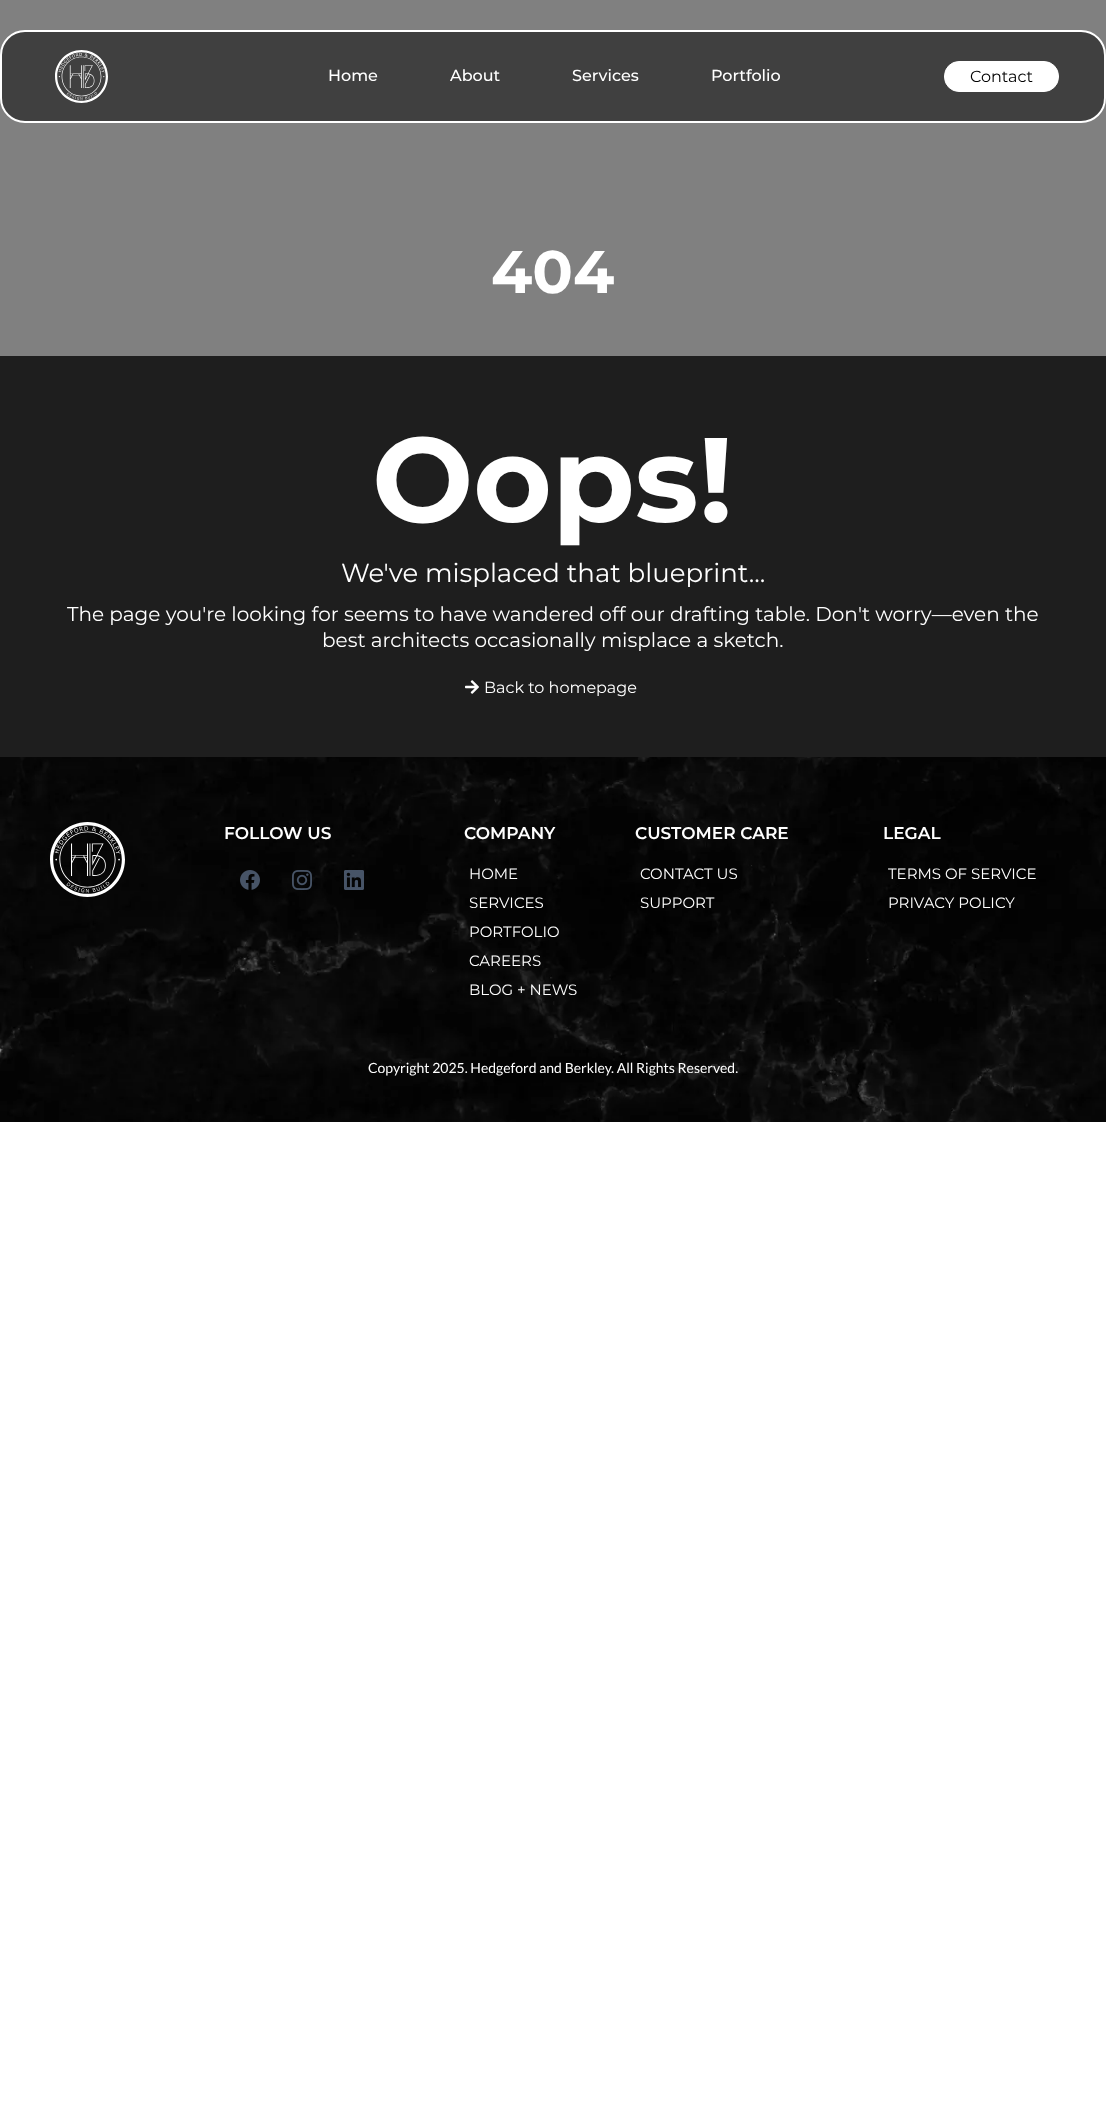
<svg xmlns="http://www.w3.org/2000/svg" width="1106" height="2123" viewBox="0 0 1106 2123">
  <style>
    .t1 { font: 500 16px Montserrat; fill: #fff; }
    .t2 { font: 16px Montserrat; fill: #000; }
    .t3 { font: bold 60px Montserrat; fill: #fff; }
    .t4 { font: bold 120px Montserrat; fill: #fff; }
    .t5 { font: 26px Montserrat; fill: #fff; }
    .t6 { font: 20px Montserrat; fill: #fff; }
    .t7 { font: 16px Montserrat; fill: #fff; }
    .t8 { font: 600 17px Montserrat; fill: #fff; }
    .t9 { font: 15px Montserrat; fill: #fff; }
    .t10 { font: 14px Lato; fill: #fff; }
  </style>
  <rect width="100%" height="100%" fill="#fff"/>
  <rect x="0" y="0" width="1106" height="356" fill="#808080"/>
  <rect x="1" y="31" width="1104" height="91" rx="24" fill="#404040" stroke="#fff" stroke-width="2"/>
  <image x="55" y="50" width="53" height="53" href="images/1.png"/>
  <text x="328" y="81" class="t1">Home</text>
  <text x="450" y="81" class="t1">About</text>
  <text x="572" y="81" class="t1">Services</text>
  <text x="711" y="81" class="t1">Portfolio</text>
  <rect x="944.5" y="61.5" width="114" height="30" rx="14.5" fill="#fff" stroke="#fff"/>
  <text x="970" y="82" class="t2">Contact</text>
  <text x="491" y="293" class="t3">404</text>
  <rect x="0" y="356" width="1106" height="401" fill="#1e1e1e"/>
  <text x="372" y="522" class="t4">Oops!</text>
  <text x="341" y="582" class="t5">We've misplaced that blueprint...</text>
  <text x="67" y="621" class="t6">The page you're looking for seems to have wandered off our drafting table. Don't worry—even the</text>
  <text x="322" y="647" class="t6">best architects occasionally misplace a sketch.</text>
  <image x="465" y="680" width="14" height="14" href="images/2.png"/>
  <text x="484" y="693" class="t7">Back to homepage</text>
  <image x="0" y="757" width="1106" height="365" href="images/3.png"/>
  <image x="50" y="822" width="75" height="75" href="images/4.png"/>
  <text x="224" y="839" class="t8">FOLLOW US</text>
  <image x="240" y="870" width="20" height="20" href="images/5.png"/>
  <image x="292" y="870" width="20" height="20" href="images/6.png"/>
  <image x="344" y="870" width="20" height="20" href="images/7.png"/>
  <text x="464" y="839" class="t8">COMPANY</text>
  <text x="469" y="879" class="t9">HOME</text>
  <text x="469" y="908" class="t9">SERVICES</text>
  <text x="469" y="937" class="t9">PORTFOLIO</text>
  <text x="469" y="966" class="t9">CAREERS</text>
  <text x="469" y="995" class="t9">BLOG + NEWS</text>
  <text x="635" y="839" class="t8">CUSTOMER CARE</text>
  <text x="640" y="879" class="t9">CONTACT US</text>
  <text x="640" y="908" class="t9">SUPPORT</text>
  <text x="883" y="839" class="t8">LEGAL</text>
  <text x="888" y="879" class="t9">TERMS OF SERVICE</text>
  <text x="888" y="908" class="t9">PRIVACY POLICY</text>
  <text x="368" y="1073" class="t10">Copyright 2025. Hedgeford and Berkley. All Rights Reserved.</text>
</svg>
